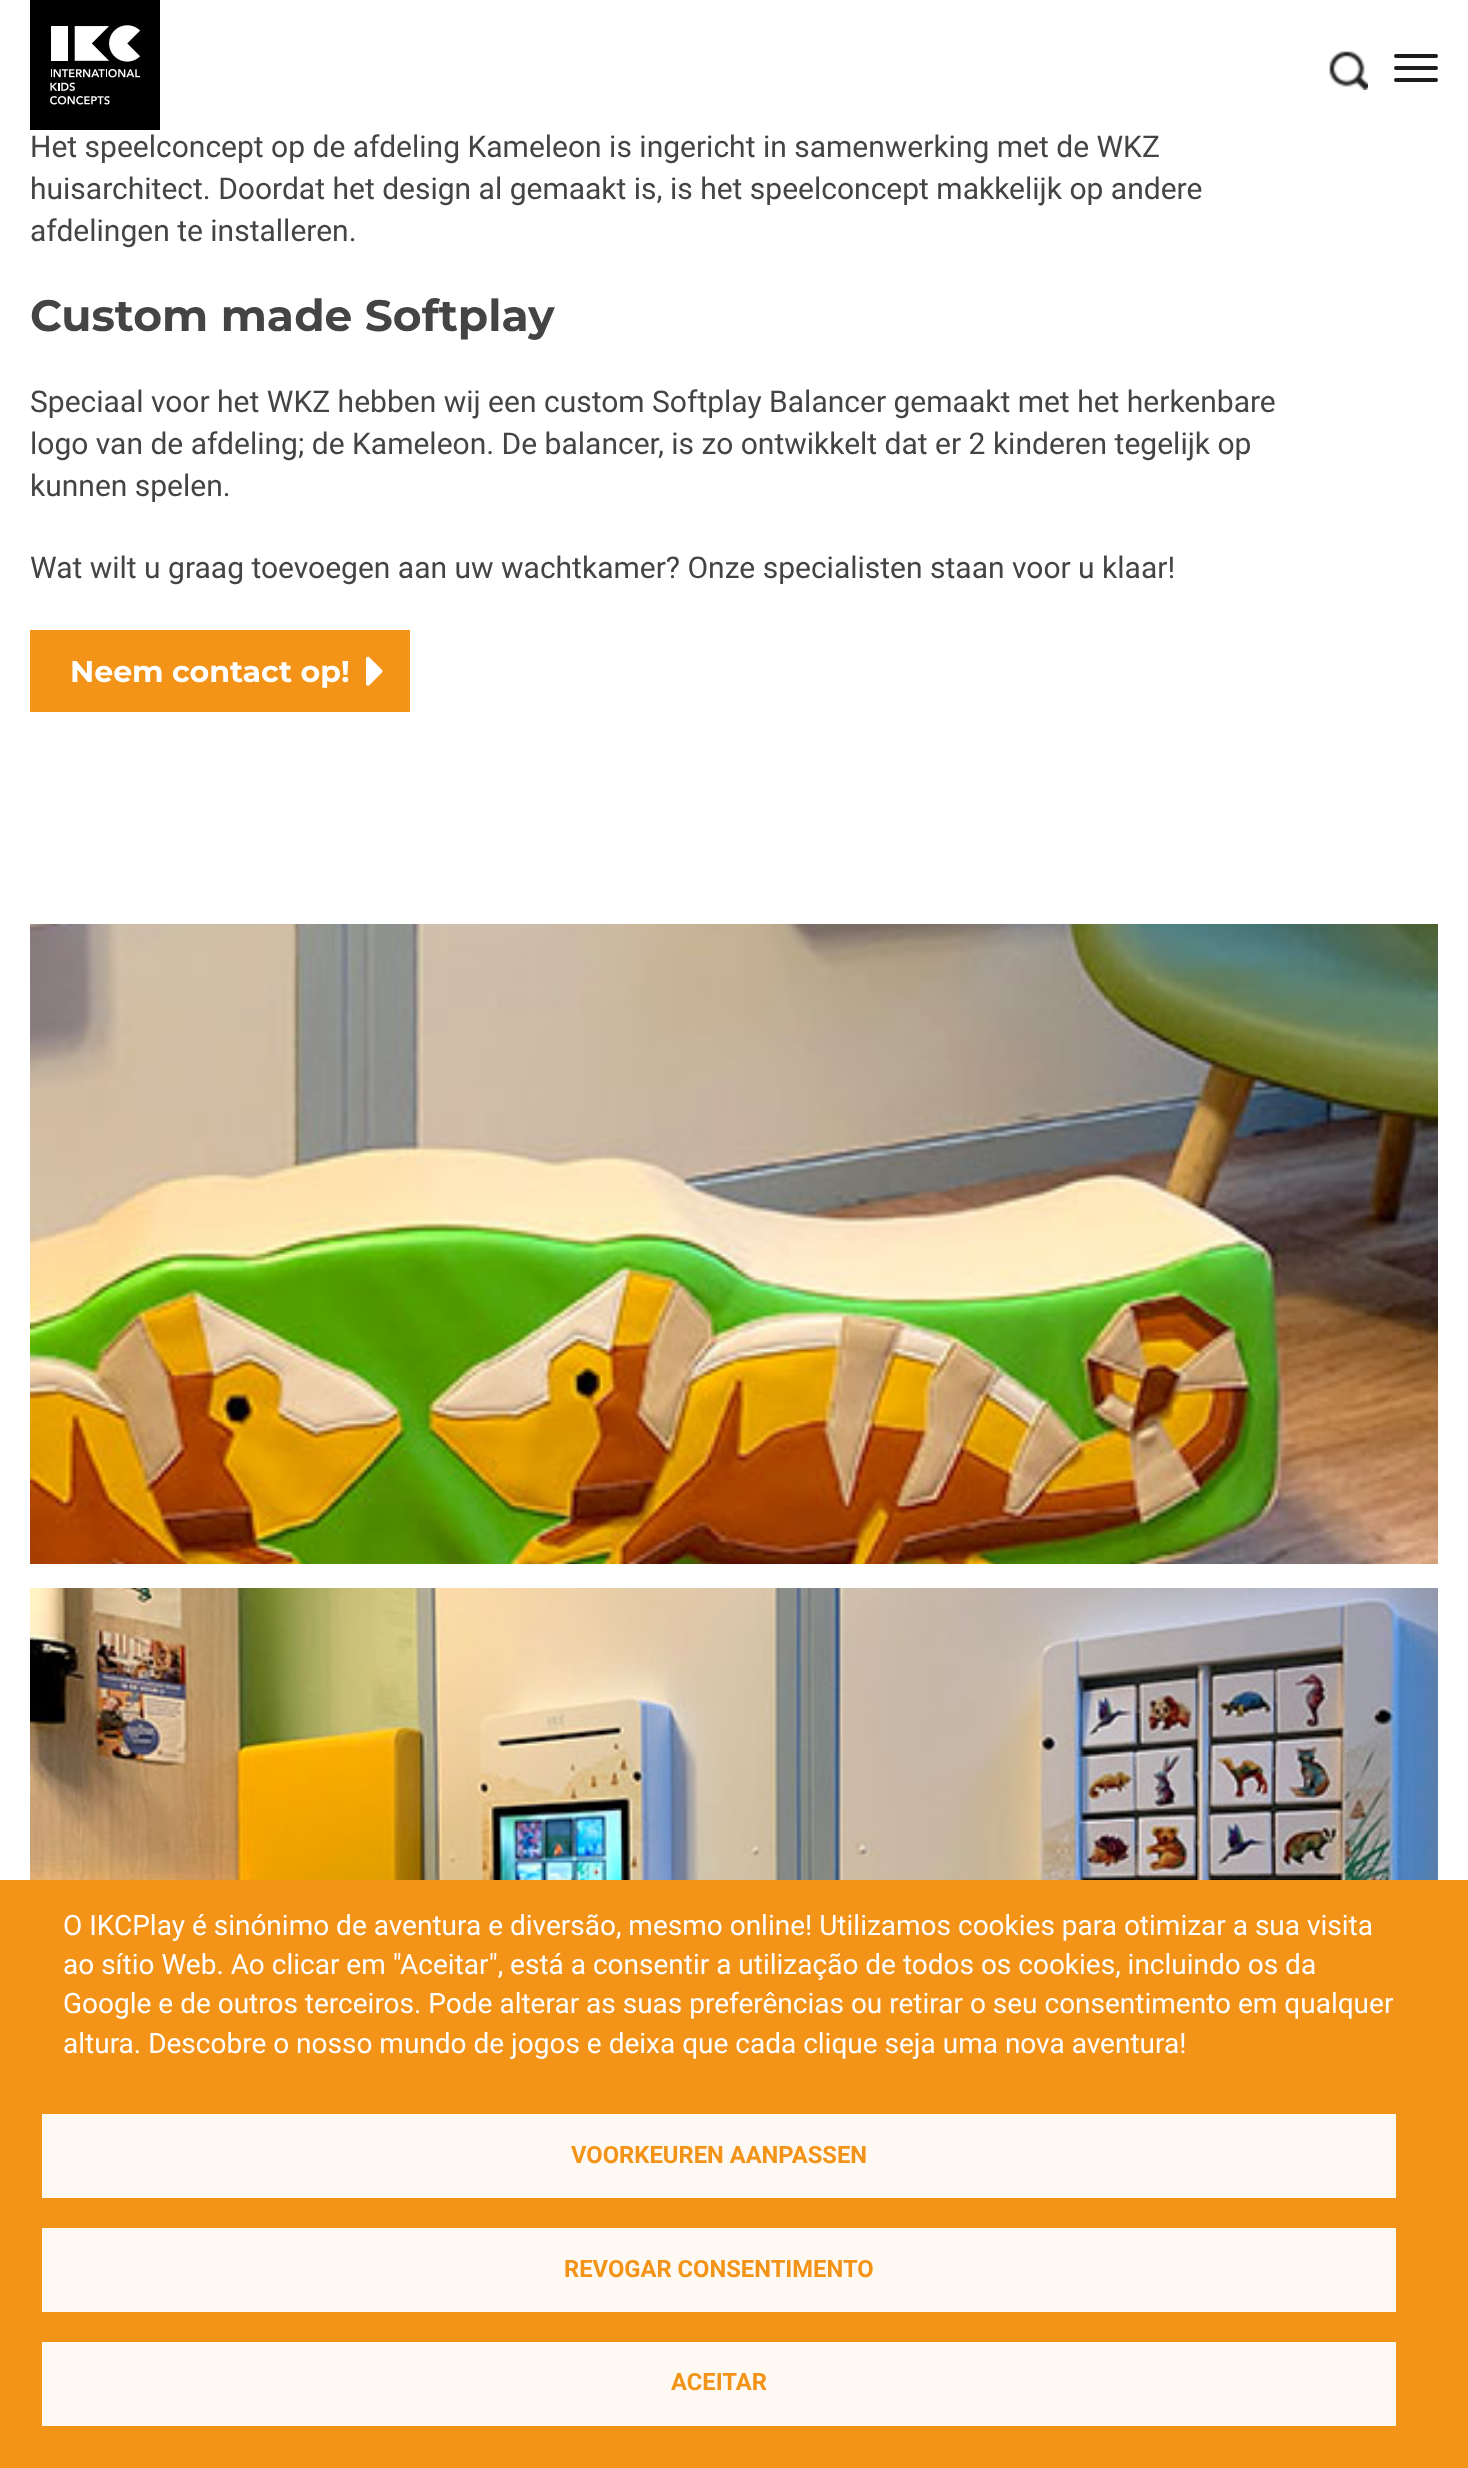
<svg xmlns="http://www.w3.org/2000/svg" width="1468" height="2468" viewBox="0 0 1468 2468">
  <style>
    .t1 { font: 30px Roboto; fill: #454444; }
    .t2 { font: bold 44px Montserrat; fill: #454444; }
    .t3 { font: bold 30px Montserrat; fill: #fff; }
    .t4 { font: 28px Roboto; fill: #fff; }
    .t5 { font: bold 23.75px Roboto; fill: #f39317; }
  </style>
  <rect width="100%" height="100%" fill="#fff"/>
  <image x="30" y="0" width="130" height="130" href="images/1.png"/>
  <image x="1329" y="51" width="39" height="39" href="images/2.png"/>
  <rect x="1394" y="54" width="44" height="4" rx="2" fill="#1d1d1b"/>
  <rect x="1394" y="66" width="44" height="4" rx="2" fill="#1d1d1b"/>
  <rect x="1394" y="78" width="44" height="4" rx="2" fill="#1d1d1b"/>
  <text x="30" y="157" class="t1">Het speelconcept op de afdeling Kameleon is ingericht in samenwerking met de WKZ</text>
  <text x="30" y="199" class="t1">huisarchitect. Doordat het design al gemaakt is, is het speelconcept makkelijk op andere</text>
  <text x="30" y="241" class="t1">afdelingen te installeren.</text>
  <text x="30" y="331" class="t2">Custom made Softplay</text>
  <text x="30" y="412" class="t1">Speciaal voor het WKZ hebben wij een custom Softplay Balancer gemaakt met het herkenbare</text>
  <text x="30" y="454" class="t1">logo van de afdeling; de Kameleon. De balancer, is zo ontwikkelt dat er 2 kinderen tegelijk op</text>
  <text x="30" y="496" class="t1">kunnen spelen.</text>
  <text x="30" y="578" class="t1">Wat wilt u graag toevoegen aan uw wachtkamer? Onze specialisten staan voor u klaar!</text>
  <rect x="30" y="630" width="380" height="82" fill="#f39317"/>
  <text x="70" y="682" class="t3">Neem contact op!</text>
  <image x="366" y="656" width="17" height="30" href="images/3.png"/>
  <image x="30" y="924" width="1408" height="640" href="images/4.png"/>
  <image x="30" y="1588" width="1408" height="292" href="images/5.png"/>
  <rect x="0" y="1880" width="1468" height="588" fill="#f39317"/>
  <text x="63" y="1935" class="t4">O IKCPlay é sinónimo de aventura e diversão, mesmo online! Utilizamos cookies para otimizar a sua visita</text>
  <text x="63" y="1974" class="t4">ao sítio Web. Ao clicar em "Aceitar", está a consentir a utilização de todos os cookies, incluindo os da</text>
  <text x="63" y="2013" class="t4">Google e de outros terceiros. Pode alterar as suas preferências ou retirar o seu consentimento em qualquer</text>
  <text x="63" y="2053" class="t4">altura. Descobre o nosso mundo de jogos e deixa que cada clique seja uma nova aventura!</text>
  <rect x="42" y="2114" width="1354" height="84" fill="#fefaf3"/>
  <text x="571" y="2163" class="t5">VOORKEUREN AANPASSEN</text>
  <rect x="42" y="2228" width="1354" height="84" fill="#fefaf3"/>
  <text x="564" y="2277" class="t5">REVOGAR CONSENTIMENTO</text>
  <rect x="42" y="2342" width="1354" height="84" fill="#fefaf3"/>
  <text x="671" y="2390" class="t5">ACEITAR</text>
</svg>
